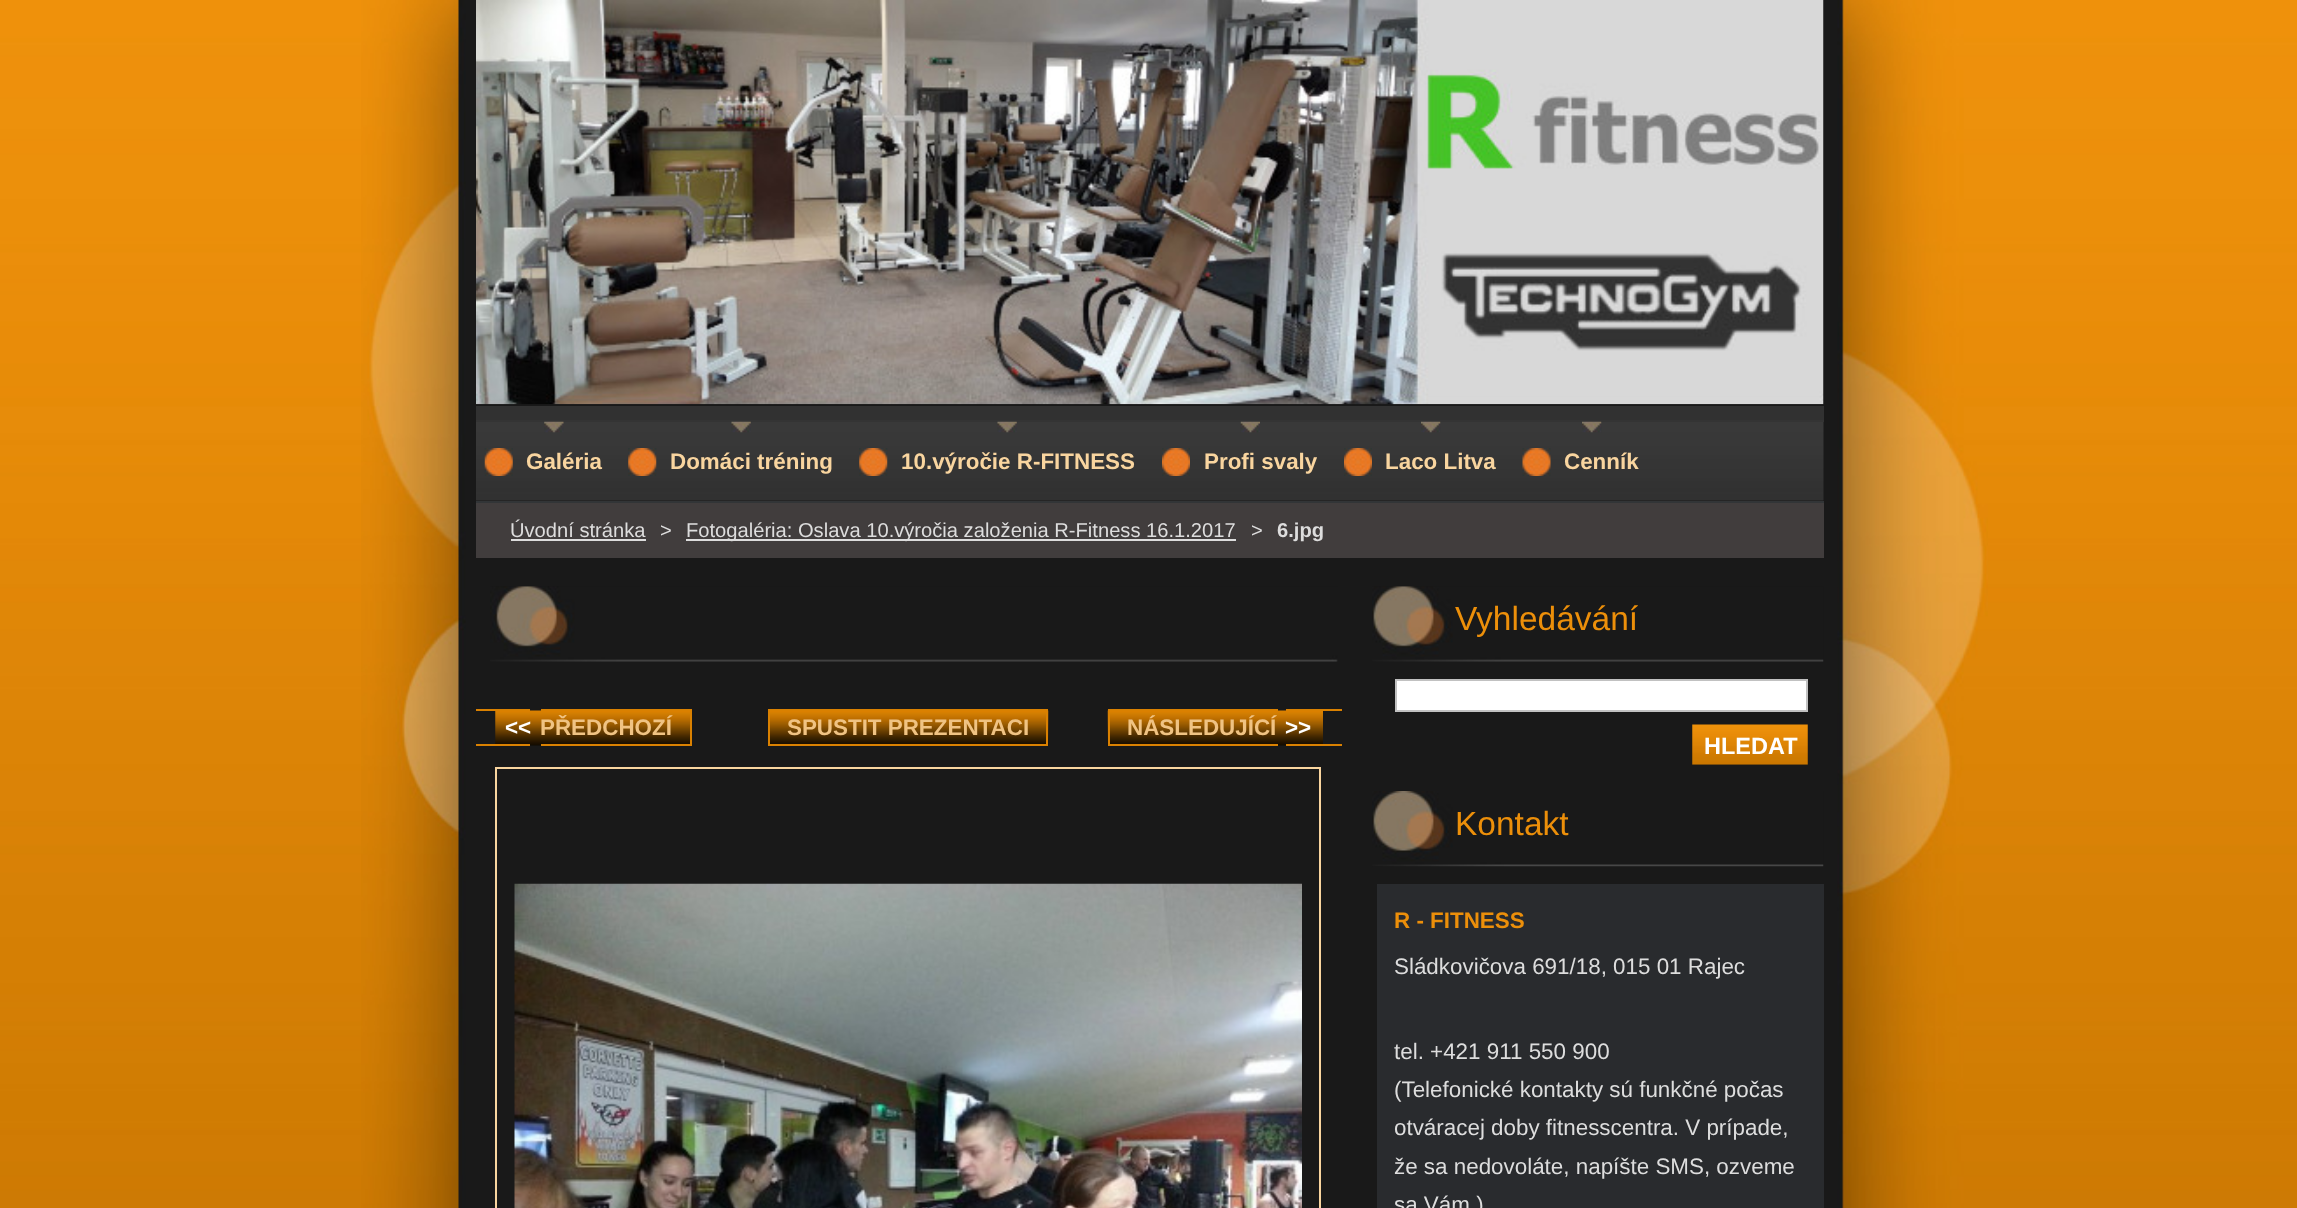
<svg xmlns="http://www.w3.org/2000/svg" width="2297" height="1208" viewBox="0 0 2297 1208">
  <style>
    .t1 { font: bold 22.4px Liberation Sans; fill: #f9d59f; }
    .t2 { font: 20.15px Liberation Sans; fill: #ddd; }
    .t3 { font: bold 20.15px Liberation Sans; fill: #ddd; }
    .t4 { font: bold 22.4px Liberation Sans; fill: #fff; }
    .t5 { font: bold 22.4px Liberation Sans; fill: #f0c383; }
    .t6 { font: 33.5px Liberation Sans; fill: #ec8f0a; }
    .t7 { font: bold 23.5px Liberation Sans; fill: #fff; }
    .t8 { font: bold 22.4px Liberation Sans; fill: #ec8f0a; }
    .t9 { font: 22.4px Liberation Sans; fill: #ddd; }
  </style>
  <rect width="100%" height="100%" fill="#fff"/>
  <image x="0" y="0" width="2297" height="1208" href="images/1.png"/>
  <image x="361" y="0" width="1627" height="1208" href="images/2.png"/>
  <rect x="476" y="406" width="1348" height="14" fill="#313131"/>
  <image x="476" y="0" width="1348" height="405" href="images/3.png"/>
  <image x="476" y="422" width="1348" height="79" href="images/4.png"/>
  <rect x="476" y="420" width="1348" height="2" fill="#343434"/>
  <rect x="476" y="501" width="1348" height="2" fill="#323537"/>
  <image x="484" y="448" width="29" height="28" href="images/5.png"/>
  <image x="544" y="421" width="20" height="12" href="images/6.png"/>
  <text x="526" y="469" class="t1">Galéria</text>
  <image x="628" y="448" width="29" height="28" href="images/7.png"/>
  <image x="731" y="421" width="20" height="12" href="images/8.png"/>
  <text x="670" y="469" class="t1">Domáci tréning</text>
  <image x="859" y="448" width="29" height="28" href="images/7.png"/>
  <image x="997" y="421" width="20" height="12" href="images/8.png"/>
  <text x="901" y="469" class="t1">10.výročie R-FITNESS</text>
  <image x="1162" y="448" width="28" height="28" href="images/9.png"/>
  <image x="1240" y="421" width="20" height="12" href="images/10.png"/>
  <text x="1204" y="469" class="t1">Profi svaly</text>
  <image x="1344" y="448" width="28" height="28" href="images/9.png"/>
  <image x="1421" y="421" width="20" height="12" href="images/11.png"/>
  <text x="1385" y="469" class="t1">Laco Litva</text>
  <image x="1522" y="448" width="29" height="28" href="images/12.png"/>
  <image x="1582" y="421" width="20" height="12" href="images/11.png"/>
  <text x="1564" y="469" class="t1">Cenník</text>
  <rect x="476" y="503" width="1348" height="55" fill="#413d3d"/>
  <text x="510" y="537" class="t2">Úvodní stránka</text>
  <rect x="511" y="539" width="135" height="2" fill="#ddd"/>
  <text x="660" y="537" class="t2">&gt;</text>
  <rect x="686" y="539" width="550" height="2" fill="#ddd"/>
  <text x="686" y="537" class="t2">Fotogaléria: Oslava 10.výročia založenia R-Fitness 16.1.2017</text>
  <text x="1251" y="537" class="t2">&gt;</text>
  <text x="1277" y="537" class="t3">6.jpg</text>
  <image x="490" y="586" width="848" height="76" href="images/13.png"/>
  <image x="495" y="710" width="195" height="36" href="images/14.png"/>
  <rect x="476" y="709" width="54" height="2" fill="#da8101"/>
  <rect x="476" y="744" width="54" height="2" fill="#da8101"/>
  <rect x="541" y="709" width="150" height="2" fill="#da8101"/>
  <rect x="690" y="709" width="2" height="37" fill="#da8101"/>
  <rect x="541" y="744" width="150" height="2" fill="#da8101"/>
  <text x="505" y="735" class="t4">&lt;&lt;</text>
  <text x="540" y="735" class="t5">PŘEDCHOZÍ</text>
  <image x="770" y="710" width="279" height="36" href="images/15.png"/>
  <rect x="769" y="710" width="278" height="35" fill="none" stroke="#da8101" stroke-width="2"/>
  <text x="787" y="735" class="t5">SPUSTIT PREZENTACI</text>
  <image x="1107" y="710" width="216" height="36" href="images/16.png"/>
  <rect x="1108" y="709" width="170" height="2" fill="#da8101"/>
  <rect x="1108" y="744" width="170" height="2" fill="#da8101"/>
  <rect x="1108" y="709" width="2" height="37" fill="#da8101"/>
  <rect x="1286" y="709" width="56" height="2" fill="#da8101"/>
  <rect x="1286" y="744" width="56" height="2" fill="#da8101"/>
  <text x="1127" y="735" class="t5">NÁSLEDUJÍCÍ</text>
  <text x="1285" y="735" class="t4">&gt;&gt;</text>
  <rect x="496" y="768" width="824" height="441" fill="none" stroke="#f9d59f" stroke-width="2"/>
  <image x="514" y="883" width="788" height="325" href="images/17.png"/>
  <image x="1372" y="586" width="452" height="76" href="images/18.png"/>
  <text x="1455" y="630" class="t6">Vyhledávání</text>
  <rect x="1396" y="680" width="411" height="31" fill="#fff" stroke="#c1c1c1" stroke-width="2"/>
  <image x="1692" y="724" width="116" height="41" href="images/19.png"/>
  <text x="1704" y="754" class="t7">HLEDAT</text>
  <image x="1372" y="791" width="452" height="76" href="images/20.png"/>
  <text x="1455" y="835" class="t6">Kontakt</text>
  <rect x="1377" y="884" width="447" height="324" fill="#292b2e"/>
  <text x="1394" y="928" class="t8">R - FITNESS</text>
  <text x="1394" y="974" class="t9">Sládkovičova 691/18, 015 01 Rajec</text>
  <text x="1394" y="1059" class="t9">tel. +421 911 550 900</text>
  <text x="1394" y="1097" class="t9">(Telefonické kontakty sú funkčné počas</text>
  <text x="1394" y="1135" class="t9">otváracej doby fitnesscentra. V prípade,</text>
  <text x="1394" y="1174" class="t9">že sa nedovoláte, napíšte SMS, ozveme</text>
  <text x="1394" y="1212" class="t9">sa Vám.)</text>
</svg>
